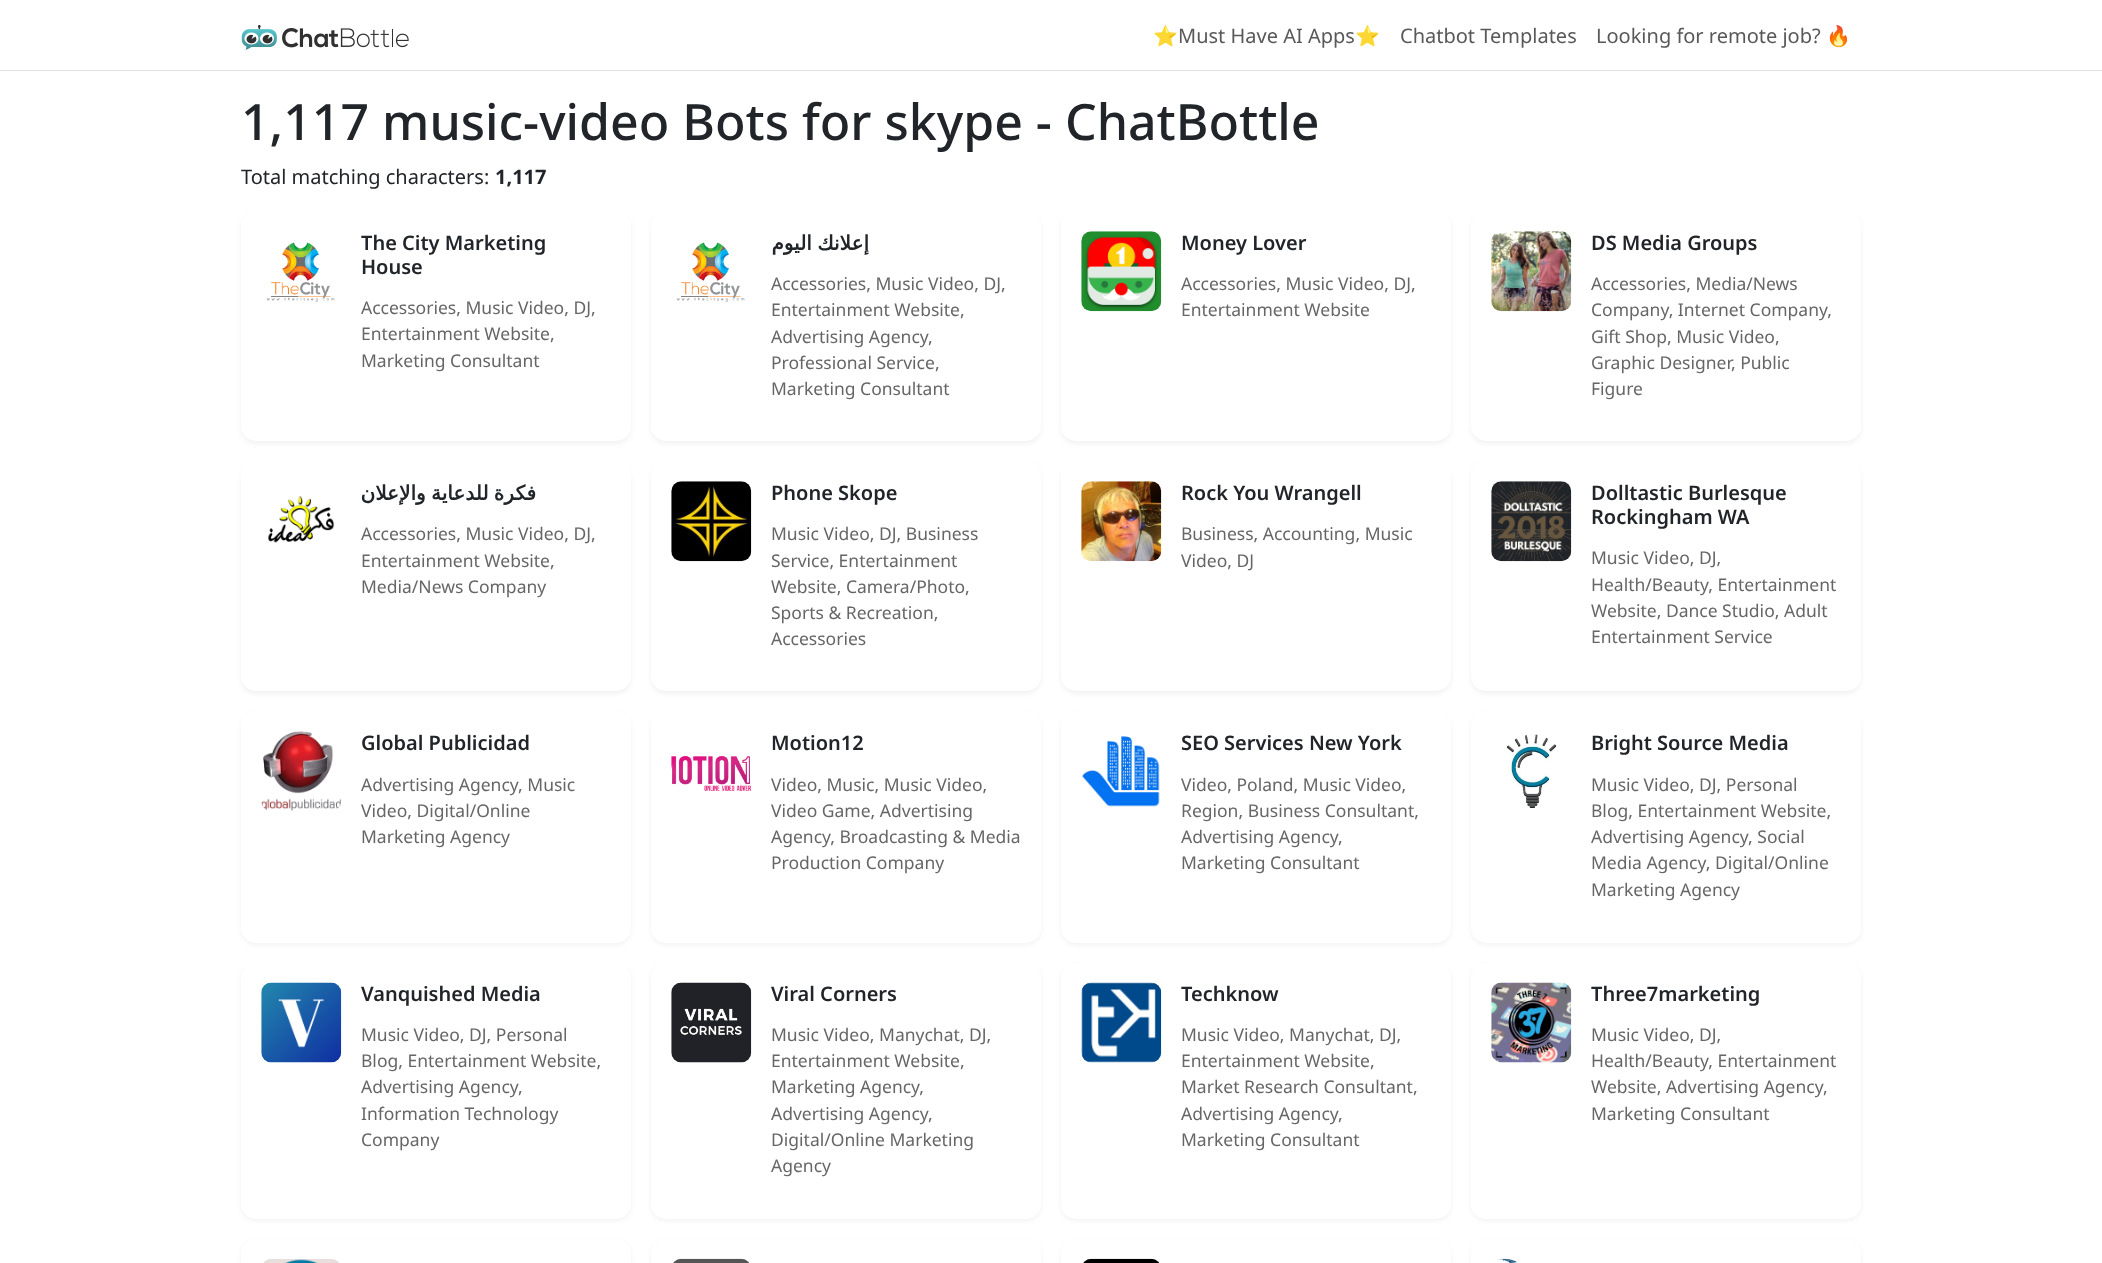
<svg xmlns="http://www.w3.org/2000/svg" width="2102" height="1263" viewBox="0 0 2102 1263">
  <style>
    .t1 { font: 20px Noto Color Emoji; fill: #595959; }
    .t2 { font: 20px Noto Sans; fill: #595959; }
    .t3 { font: 500 50px Noto Sans; fill: #212529; }
    .t4 { font: 20px Noto Sans; fill: #212529; }
    .t5 { font: bold 20px Noto Sans; fill: #212529; }
    .t6 { font: 600 20px Noto Sans; fill: #212529; }
    .t7 { font: 17.5px Noto Sans; fill: #666; }
    .t8 { font: bold 20px DejaVu Sans; direction: rtl; fill: #212529; }
  </style>
  <rect width="100%" height="100%" fill="#fff"/>
  <rect x="0" y="70" width="2102" height="1" fill="#dee2e6"/>
  <image x="241" y="25" width="168" height="25" href="images/1.png"/>
  <text x="1153" y="43" class="t1">⭐</text>
  <text x="1178" y="43" class="t2">Must Have AI Apps</text>
  <text x="1355" y="43" class="t1">⭐</text>
  <text x="1400" y="43" class="t2">Chatbot Templates</text>
  <text x="1596" y="43" class="t2">Looking for remote job?</text>
  <text x="1826" y="43" class="t1">🔥</text>
  <text x="241" y="140" class="t3">1,117 music-video Bots for skype - ChatBottle</text>
  <text x="241" y="184" class="t4">Total matching characters:</text>
  <text x="495" y="184" class="t5">1,117</text>
  <rect x="241" y="214" width="390" height="230" rx="15" fill="#0000000d" filter="blur(2.5px)"/>
  <rect x="241" y="211" width="390" height="230" rx="15" fill="#fff"/>
  <image x="266" y="242" width="69" height="60" href="images/2.png"/>
  <text x="361" y="250" class="t6">The City Marketing</text>
  <text x="361" y="274" class="t6">House</text>
  <text x="361" y="314" class="t7">Accessories, Music Video, DJ,</text>
  <text x="361" y="340" class="t7">Entertainment Website,</text>
  <text x="361" y="367" class="t7">Marketing Consultant</text>
  <rect x="651" y="214" width="390" height="230" rx="15" fill="#0000000d" filter="blur(2.5px)"/>
  <rect x="651" y="211" width="390" height="230" rx="15" fill="#fff"/>
  <image x="676" y="242" width="69" height="60" href="images/3.png"/>
  <text x="869" y="250" word-spacing="-1" class="t8">إعلانك اليوم</text>
  <text x="771" y="290" class="t7">Accessories, Music Video, DJ,</text>
  <text x="771" y="316" class="t7">Entertainment Website,</text>
  <text x="771" y="343" class="t7">Advertising Agency,</text>
  <text x="771" y="369" class="t7">Professional Service,</text>
  <text x="771" y="395" class="t7">Marketing Consultant</text>
  <rect x="1061" y="214" width="390" height="230" rx="15" fill="#0000000d" filter="blur(2.5px)"/>
  <rect x="1061" y="211" width="390" height="230" rx="15" fill="#fff"/>
  <image x="1081" y="231" width="81" height="81" href="images/4.png"/>
  <text x="1181" y="250" class="t6">Money Lover</text>
  <text x="1181" y="290" class="t7">Accessories, Music Video, DJ,</text>
  <text x="1181" y="316" class="t7">Entertainment Website</text>
  <rect x="1471" y="214" width="390" height="230" rx="15" fill="#0000000d" filter="blur(2.5px)"/>
  <rect x="1471" y="211" width="390" height="230" rx="15" fill="#fff"/>
  <image x="1491" y="231" width="81" height="81" href="images/5.png"/>
  <text x="1591" y="250" class="t6">DS Media Groups</text>
  <text x="1591" y="290" class="t7">Accessories, Media/News</text>
  <text x="1591" y="316" class="t7">Company, Internet Company,</text>
  <text x="1591" y="343" class="t7">Gift Shop, Music Video,</text>
  <text x="1591" y="369" class="t7">Graphic Designer, Public</text>
  <text x="1591" y="395" class="t7">Figure</text>
  <rect x="241" y="464" width="390" height="230" rx="15" fill="#0000000d" filter="blur(2.5px)"/>
  <rect x="241" y="461" width="390" height="230" rx="15" fill="#fff"/>
  <image x="268" y="495" width="67" height="48" href="images/6.png"/>
  <text x="536" y="500" word-spacing="-1" class="t8">فكرة للدعاية والإعلان</text>
  <text x="361" y="540" class="t7">Accessories, Music Video, DJ,</text>
  <text x="361" y="567" class="t7">Entertainment Website,</text>
  <text x="361" y="593" class="t7">Media/News Company</text>
  <rect x="651" y="464" width="390" height="230" rx="15" fill="#0000000d" filter="blur(2.5px)"/>
  <rect x="651" y="461" width="390" height="230" rx="15" fill="#fff"/>
  <image x="671" y="481" width="81" height="81" href="images/7.png"/>
  <text x="771" y="500" class="t6">Phone Skope</text>
  <text x="771" y="540" class="t7">Music Video, DJ, Business</text>
  <text x="771" y="567" class="t7">Service, Entertainment</text>
  <text x="771" y="593" class="t7">Website, Camera/Photo,</text>
  <text x="771" y="619" class="t7">Sports &amp; Recreation,</text>
  <text x="771" y="645" class="t7">Accessories</text>
  <rect x="1061" y="464" width="390" height="230" rx="15" fill="#0000000d" filter="blur(2.5px)"/>
  <rect x="1061" y="461" width="390" height="230" rx="15" fill="#fff"/>
  <image x="1081" y="481" width="81" height="81" href="images/8.png"/>
  <text x="1181" y="500" class="t6">Rock You Wrangell</text>
  <text x="1181" y="540" class="t7">Business, Accounting, Music</text>
  <text x="1181" y="567" class="t7">Video, DJ</text>
  <rect x="1471" y="464" width="390" height="230" rx="15" fill="#0000000d" filter="blur(2.5px)"/>
  <rect x="1471" y="461" width="390" height="230" rx="15" fill="#fff"/>
  <image x="1491" y="481" width="81" height="81" href="images/9.png"/>
  <text x="1591" y="500" class="t6">Dolltastic Burlesque</text>
  <text x="1591" y="524" class="t6">Rockingham WA</text>
  <text x="1591" y="564" class="t7">Music Video, DJ,</text>
  <text x="1591" y="591" class="t7">Health/Beauty, Entertainment</text>
  <text x="1591" y="617" class="t7">Website, Dance Studio, Adult</text>
  <text x="1591" y="643" class="t7">Entertainment Service</text>
  <rect x="241" y="714" width="390" height="231" rx="15" fill="#0000000d" filter="blur(2.5px)"/>
  <rect x="241" y="711" width="390" height="232" rx="15" fill="#fff"/>
  <image x="261" y="731" width="81" height="80" href="images/10.png"/>
  <text x="361" y="750" class="t6">Global Publicidad</text>
  <text x="361" y="791" class="t7">Advertising Agency, Music</text>
  <text x="361" y="817" class="t7">Video, Digital/Online</text>
  <text x="361" y="843" class="t7">Marketing Agency</text>
  <rect x="651" y="714" width="390" height="231" rx="15" fill="#0000000d" filter="blur(2.5px)"/>
  <rect x="651" y="711" width="390" height="232" rx="15" fill="#fff"/>
  <image x="671" y="755" width="80" height="36" href="images/11.png"/>
  <text x="771" y="750" class="t6">Motion12</text>
  <text x="771" y="791" class="t7">Video, Music, Music Video,</text>
  <text x="771" y="817" class="t7">Video Game, Advertising</text>
  <text x="771" y="843" class="t7">Agency, Broadcasting &amp; Media</text>
  <text x="771" y="869" class="t7">Production Company</text>
  <rect x="1061" y="714" width="390" height="231" rx="15" fill="#0000000d" filter="blur(2.5px)"/>
  <rect x="1061" y="711" width="390" height="232" rx="15" fill="#fff"/>
  <image x="1082" y="736" width="78" height="71" href="images/12.png"/>
  <text x="1181" y="750" class="t6">SEO Services New York</text>
  <text x="1181" y="791" class="t7">Video, Poland, Music Video,</text>
  <text x="1181" y="817" class="t7">Region, Business Consultant,</text>
  <text x="1181" y="843" class="t7">Advertising Agency,</text>
  <text x="1181" y="869" class="t7">Marketing Consultant</text>
  <rect x="1471" y="714" width="390" height="231" rx="15" fill="#0000000d" filter="blur(2.5px)"/>
  <rect x="1471" y="711" width="390" height="232" rx="15" fill="#fff"/>
  <image x="1506" y="734" width="51" height="74" href="images/13.png"/>
  <text x="1591" y="750" class="t6">Bright Source Media</text>
  <text x="1591" y="791" class="t7">Music Video, DJ, Personal</text>
  <text x="1591" y="817" class="t7">Blog, Entertainment Website,</text>
  <text x="1591" y="843" class="t7">Advertising Agency, Social</text>
  <text x="1591" y="869" class="t7">Media Agency, Digital/Online</text>
  <text x="1591" y="896" class="t7">Marketing Agency</text>
  <rect x="241" y="965" width="390" height="256" rx="15" fill="#0000000d" filter="blur(2.5px)"/>
  <rect x="241" y="963" width="390" height="256" rx="15" fill="#fff"/>
  <image x="261" y="982" width="81" height="81" href="images/14.png"/>
  <text x="361" y="1001" class="t6">Vanquished Media</text>
  <text x="361" y="1041" class="t7">Music Video, DJ, Personal</text>
  <text x="361" y="1067" class="t7">Blog, Entertainment Website,</text>
  <text x="361" y="1093" class="t7">Advertising Agency,</text>
  <text x="361" y="1120" class="t7">Information Technology</text>
  <text x="361" y="1146" class="t7">Company</text>
  <rect x="651" y="965" width="390" height="256" rx="15" fill="#0000000d" filter="blur(2.5px)"/>
  <rect x="651" y="963" width="390" height="256" rx="15" fill="#fff"/>
  <image x="671" y="982" width="81" height="81" href="images/15.png"/>
  <text x="771" y="1001" class="t6">Viral Corners</text>
  <text x="771" y="1041" class="t7">Music Video, Manychat, DJ,</text>
  <text x="771" y="1067" class="t7">Entertainment Website,</text>
  <text x="771" y="1093" class="t7">Marketing Agency,</text>
  <text x="771" y="1120" class="t7">Advertising Agency,</text>
  <text x="771" y="1146" class="t7">Digital/Online Marketing</text>
  <text x="771" y="1172" class="t7">Agency</text>
  <rect x="1061" y="965" width="390" height="256" rx="15" fill="#0000000d" filter="blur(2.5px)"/>
  <rect x="1061" y="963" width="390" height="256" rx="15" fill="#fff"/>
  <image x="1081" y="982" width="81" height="81" href="images/16.png"/>
  <text x="1181" y="1001" class="t6">Techknow</text>
  <text x="1181" y="1041" class="t7">Music Video, Manychat, DJ,</text>
  <text x="1181" y="1067" class="t7">Entertainment Website,</text>
  <text x="1181" y="1093" class="t7">Market Research Consultant,</text>
  <text x="1181" y="1120" class="t7">Advertising Agency,</text>
  <text x="1181" y="1146" class="t7">Marketing Consultant</text>
  <rect x="1471" y="965" width="390" height="256" rx="15" fill="#0000000d" filter="blur(2.5px)"/>
  <rect x="1471" y="963" width="390" height="256" rx="15" fill="#fff"/>
  <image x="1491" y="982" width="81" height="81" href="images/17.png"/>
  <text x="1591" y="1001" class="t6">Three7marketing</text>
  <text x="1591" y="1041" class="t7">Music Video, DJ,</text>
  <text x="1591" y="1067" class="t7">Health/Beauty, Entertainment</text>
  <text x="1591" y="1093" class="t7">Website, Advertising Agency,</text>
  <text x="1591" y="1120" class="t7">Marketing Consultant</text>
  <rect x="241" y="1241" width="390" height="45" rx="15" fill="#0000000d" filter="blur(2.5px)"/>
  <rect x="241" y="1239" width="390" height="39" rx="15" fill="#fff"/>
  <image x="263" y="1259" width="76" height="4" href="images/18.png"/>
  <rect x="651" y="1241" width="390" height="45" rx="15" fill="#0000000d" filter="blur(2.5px)"/>
  <rect x="651" y="1239" width="390" height="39" rx="15" fill="#fff"/>
  <image x="673" y="1258" width="76" height="5" href="images/19.png"/>
  <rect x="1061" y="1241" width="390" height="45" rx="15" fill="#0000000d" filter="blur(2.5px)"/>
  <rect x="1061" y="1239" width="390" height="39" rx="15" fill="#fff"/>
  <image x="1083" y="1258" width="77" height="5" href="images/20.png"/>
  <rect x="1471" y="1241" width="390" height="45" rx="15" fill="#0000000d" filter="blur(2.5px)"/>
  <rect x="1471" y="1239" width="390" height="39" rx="15" fill="#fff"/>
  <image x="1496" y="1258" width="22" height="5" href="images/21.png"/>
</svg>
